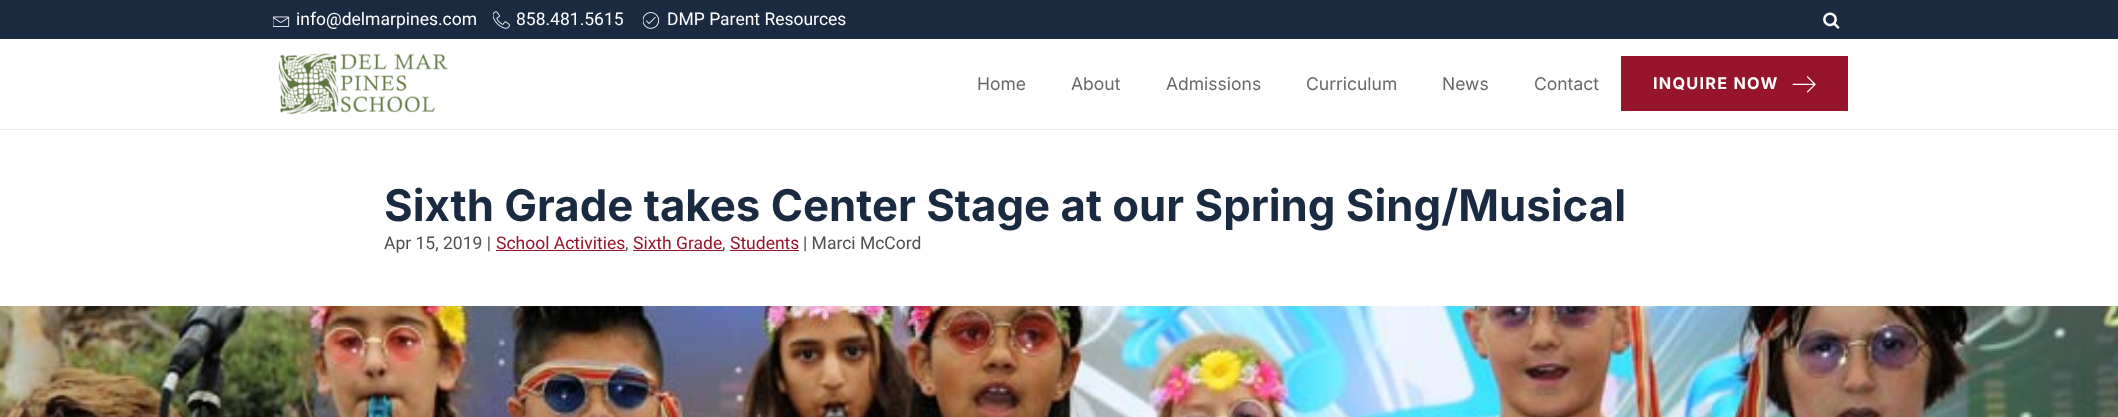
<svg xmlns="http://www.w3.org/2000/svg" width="2118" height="417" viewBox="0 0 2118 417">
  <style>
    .t1 { font: 17.5px Roboto; fill: #fff; }
    .t2 { font: 17.5px Inter; fill: #686868; }
    .t3 { font: bold 16.25px Inter; letter-spacing: 1.25px; fill: #fff; }
    .t4 { font: bold 43.75px Inter; fill: #1a2a41; }
    .t5 { font: 17.5px Roboto; fill: #4f4f4f; }
    .t6 { font: 17.5px Roboto; fill: #96152b; }
  </style>
  <rect width="100%" height="100%" fill="#fff"/>
  <rect x="0" y="0" width="2118" height="39" fill="#1a2a41"/>
  <image x="273" y="16" width="17" height="11" href="images/1.png"/>
  <text x="296" y="25" class="t1">info@delmarpines.com</text>
  <image x="493" y="11" width="17" height="18" href="images/2.png"/>
  <text x="516" y="25" class="t1">858.481.5615</text>
  <image x="643" y="12" width="17" height="17" href="images/3.png"/>
  <text x="667" y="25" class="t1">DMP Parent Resources</text>
  <image x="1823" y="12" width="17" height="17" href="images/4.png"/>
  <rect x="0" y="129" width="2118" height="1" fill="#eaeaea"/>
  <image x="278" y="53" width="170" height="62" href="images/5.png"/>
  <text x="977" y="90" class="t2">Home</text>
  <text x="1071" y="90" class="t2">About</text>
  <text x="1166" y="90" class="t2">Admissions</text>
  <text x="1306" y="90" class="t2">Curriculum</text>
  <text x="1442" y="90" class="t2">News</text>
  <text x="1534" y="90" class="t2">Contact</text>
  <rect x="1621" y="56" width="227" height="55" fill="#96152b"/>
  <text x="1653" y="89" class="t3">INQUIRE NOW</text>
  <image x="1792" y="76" width="24" height="17" href="images/6.png"/>
  <text x="384" y="221" class="t4">Sixth Grade takes Center Stage at our Spring Sing/Musical</text>
  <text x="384" y="249" class="t5">Apr 15, 2019 |</text>
  <text x="496" y="249" class="t6">School Activities</text>
  <rect x="496" y="250" width="129" height="1" fill="#96152b"/>
  <text x="625" y="249" class="t5">,</text>
  <text x="633" y="249" class="t6">Sixth Grade</text>
  <rect x="633" y="250" width="90" height="1" fill="#96152b"/>
  <text x="722" y="249" class="t5">,</text>
  <text x="730" y="249" class="t6">Students</text>
  <rect x="730" y="250" width="69" height="1" fill="#96152b"/>
  <text x="803" y="249" class="t5">| Marci McCord</text>
  <image x="0" y="306" width="2118" height="111" href="images/7.png"/>
</svg>
